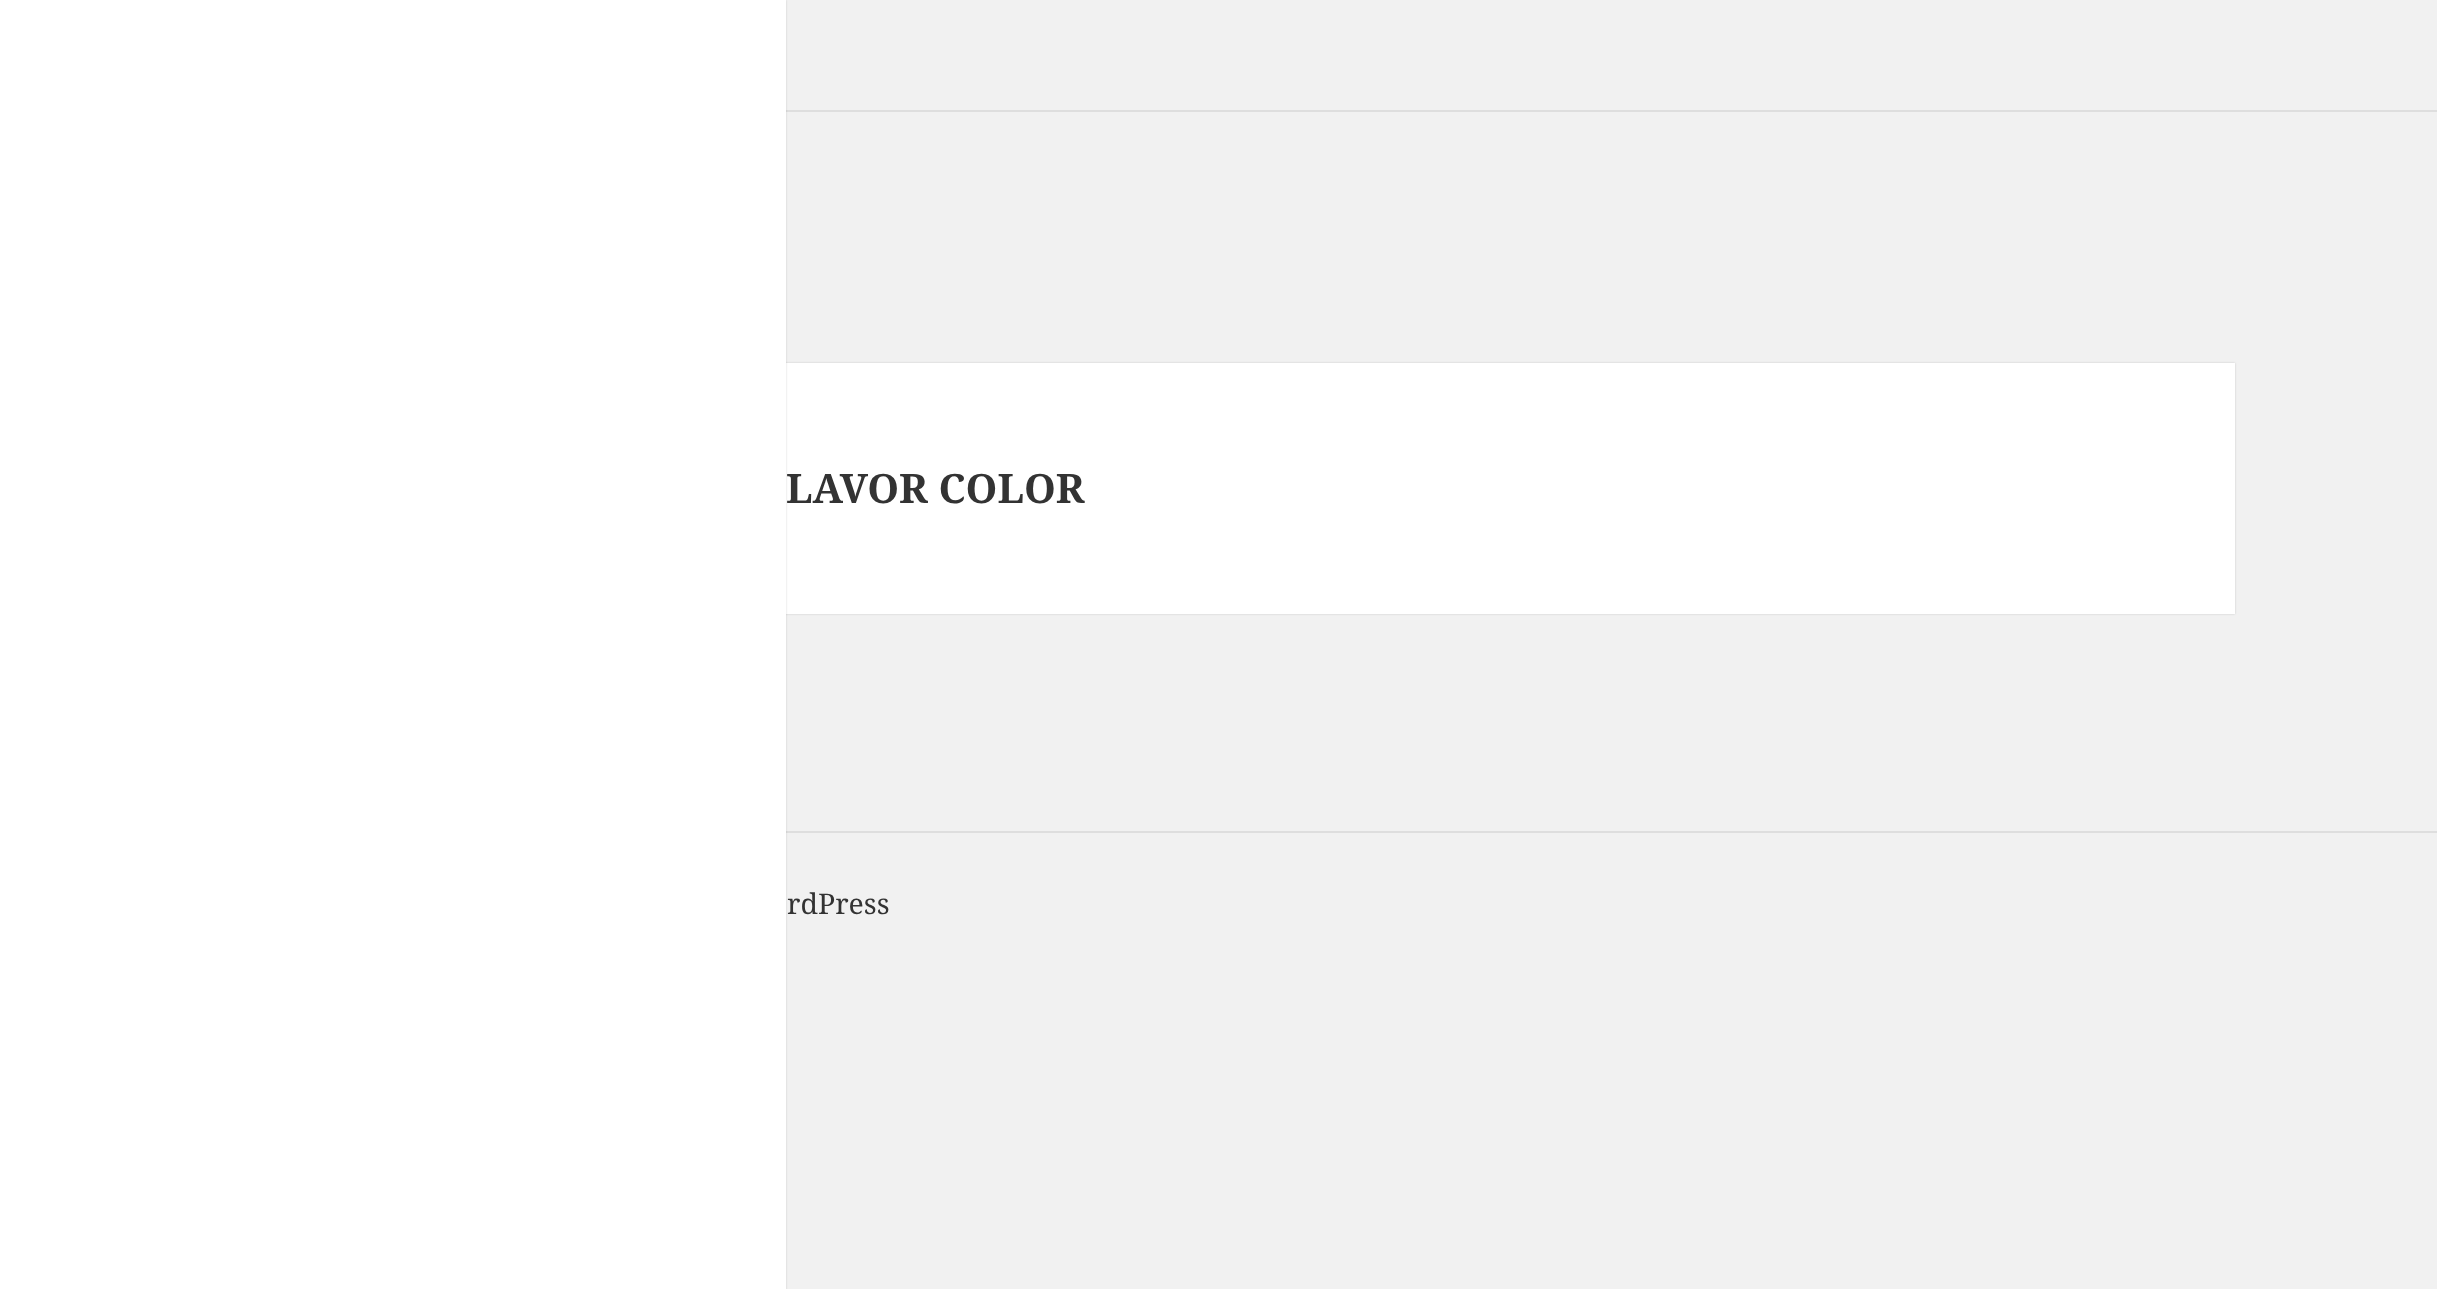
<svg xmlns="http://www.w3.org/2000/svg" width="2437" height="1289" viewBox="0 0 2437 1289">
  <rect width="100%" height="100%" fill="#f1f1f1"/>
  <path d="M786 110h1651v2H786z" fill="#dedede"/>
  <path d="M203 363h2032v251H203z" fill="#00000026" filter="blur(1px)"/>
  <path d="M786 363h1449v251H786z" fill="#fff"/>
  <path d="M786 831h1651v2H786z" fill="#dedede"/>
  <path d="M0 0h786v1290H0z" fill="#00000026" filter="blur(1px)"/>
  <path d="M0 0h786v1289H0z" fill="#fff"/>
  <text x="786" y="503" font-family="Noto Serif" font-size="40.5" font-weight="bold" fill="#333">LAVOR COLOR</text>
  <text x="787" y="914" font-family="Noto Serif" font-size="28.5" fill="#333">rdPress</text>
</svg>
